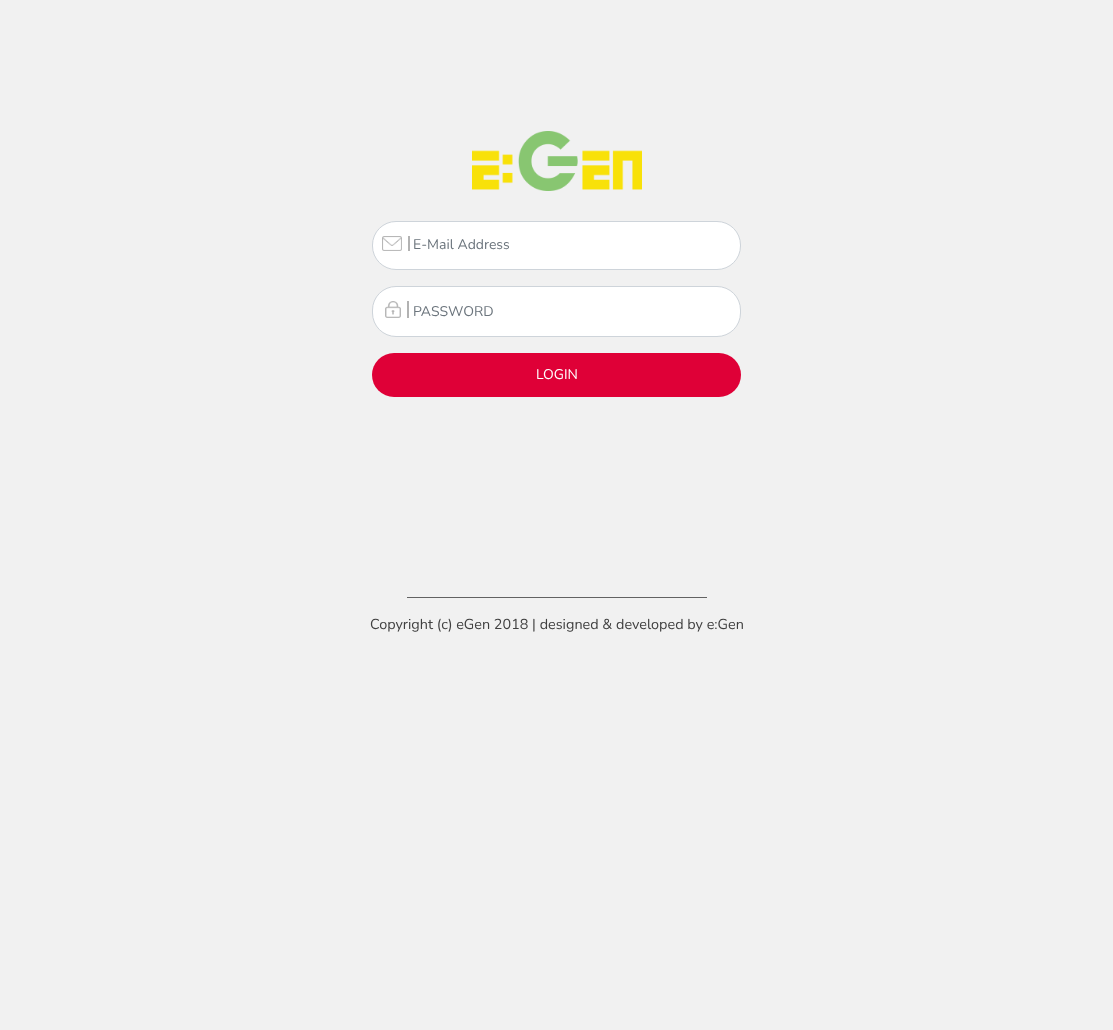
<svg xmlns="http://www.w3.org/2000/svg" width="1113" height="1030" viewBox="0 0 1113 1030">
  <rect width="100%" height="100%" fill="#f1f1f1"/>
  <image x="472" y="131" width="170" height="60" href="img/1.png"/>
  <rect x="372.5" y="221.5" width="368" height="48" rx="23.5" fill="#fff" stroke="#ced4da"/>
  <path d="M408 236h2v15H408z" fill="#b2b2b2"/>
  <image x="382" y="236" width="20" height="15" href="img/2.png"/>
  <rect x="372.5" y="286.5" width="368" height="50" rx="23.5" fill="#fff" stroke="#ced4da"/>
  <path d="M407 301h2v17H407z" fill="#b2b2b2"/>
  <image x="385" y="301" width="16" height="17" href="img/3.png"/>
  <rect x="372" y="353" width="369" height="44" rx="22" fill="#df0037"/>
  <path d="M407 597h300v1H407z" fill="#626262"/>
  <g font-family="Nunito" font-size="14" font-weight="200" fill="#6c757d">
    <text x="413" y="249">E-Mail Address</text>
    <text x="413" y="316">PASSWORD</text>
  </g>
  <text x="536" y="379" font-family="Nunito" font-size="14" font-weight="200" fill="#fff">LOGIN</text>
  <text x="370" y="629" font-family="Nunito" font-size="14.4" font-weight="200" fill="#404040">Copyright (c) eGen 2018 | designed &amp; developed by e:Gen</text>
</svg>
